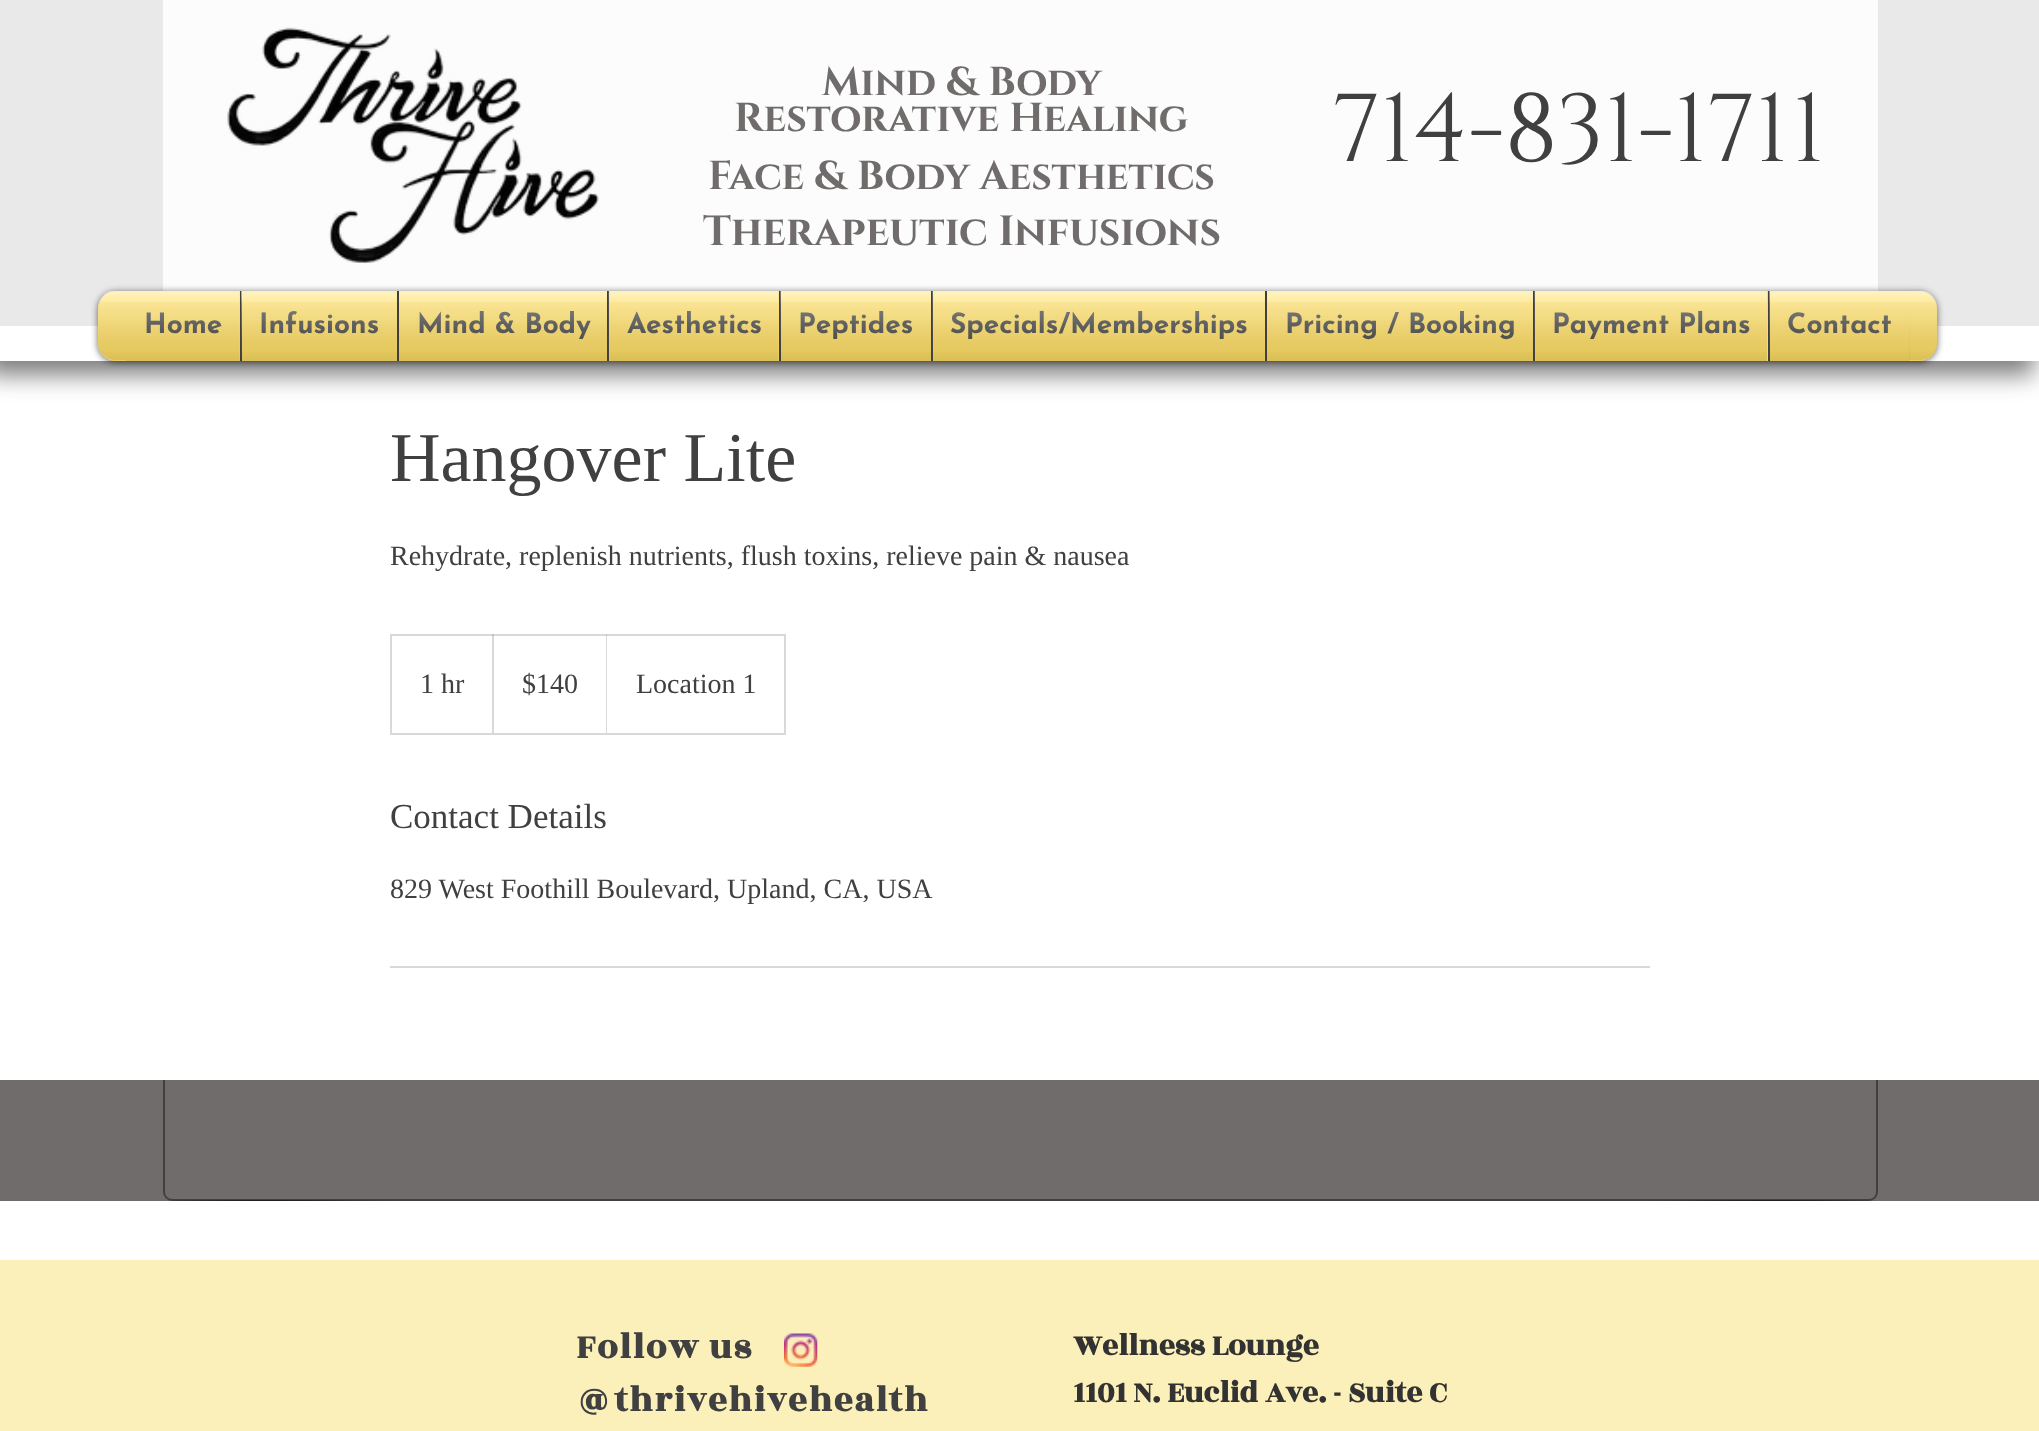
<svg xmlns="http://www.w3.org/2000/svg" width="2039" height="1431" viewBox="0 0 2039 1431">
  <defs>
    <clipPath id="clip1"><path d="M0 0H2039V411H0ZM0 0H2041V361H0Z" clip-rule="evenodd"/></clipPath>
  </defs>
  <rect width="100%" height="100%" fill="#706c6c"/>
  <rect x="164" y="327" width="1713" height="873" rx="8" fill="none" stroke="#404041" stroke-width="2"/>
  <path d="M0 326h2039v754H0z" fill="#fff"/>
  <g clip-path="url(#clip1)">
    <path d="M-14 7h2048v368H-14z" fill="#00000082" filter="blur(11.5px)"/>
  </g>
  <path d="M0 0h2039v361H0z" fill="#ffffffd9"/>
  <path d="M163 0h1715v291H163z" fill="#ffffffd9"/>
  <image x="227" y="27" width="372" height="237" href="img/1.png"/>
  <rect x="98" y="292" width="1839" height="70" rx="18" fill="#00000099" filter="blur(3.5px)"/>
  <rect x="98" y="291" width="1839" height="70" rx="18" fill="#ffde5f"/>
  <image x="98" y="291" width="1839" height="70" href="img/2.png"/>
  <image x="98" y="302" width="1839" height="59" href="img/3.png"/>
  <path d="M126 291h114v70H126z" fill="#ffde5f"/>
  <path d="M242 291h155v70H242z" fill="#ffde5f"/>
  <path d="M240 291h2v70H240z" fill="#404041"/>
  <path d="M399 291h208v70H399z" fill="#ffde5f"/>
  <path d="M397 291h2v70H397z" fill="#404041"/>
  <path d="M609 291h170v70H609z" fill="#ffde5f"/>
  <path d="M607 291h2v70H607z" fill="#404041"/>
  <path d="M781 291h150v70H781z" fill="#ffde5f"/>
  <path d="M779 291h2v70H779z" fill="#404041"/>
  <path d="M933 291h332v70H933z" fill="#ffde5f"/>
  <path d="M931 291h2v70H931z" fill="#404041"/>
  <path d="M1267 291h266v70H1267z" fill="#ffde5f"/>
  <path d="M1265 291h2v70H1265z" fill="#404041"/>
  <path d="M1535 291h233v70H1535z" fill="#ffde5f"/>
  <path d="M1533 291h2v70H1533z" fill="#404041"/>
  <path d="M1770 291h139v70H1770z" fill="#ffde5f"/>
  <path d="M1768 291h2v70H1768z" fill="#404041"/>
  <image x="164" y="1200" width="230" height="1" href="img/22.png"/>
  <image x="1647" y="1200" width="230" height="1" href="img/23.png"/>
  <path d="M391 635h394v99H391z" fill="none" stroke="#d9d9d9" stroke-width="2"/>
  <path d="M492 733V634L494 635V733Z" fill="#40404133"/>
  <path d="M606 733V634L607 635V733Z" fill="#40404133"/>
  <path d="M390 966h1260v2H390z" fill="#d9d9d9"/>
  <path d="M0 1201h2039v59H0z" fill="#fff"/>
  <path d="M0 1260h2039v171H0z" fill="#fbefba"/>
  <image x="784" y="1333" width="34" height="34" href="img/24.png"/>
  <g font-family="Cinzel" font-size="40.25" font-weight="bold" fill="#706c6c">
    <text x="822" y="95">Mind &amp; Body</text>
    <text x="734" y="131">Restorative Healing</text>
    <text x="708" y="189">Face &amp; Body Aesthetics</text>
  </g>
  <text x="703" y="245" font-family="Cinzel" font-size="42" font-weight="bold" fill="#706c6c">Therapeutic Infusions</text>
  <text x="1332" y="161" font-family="Cinzel" font-size="96.25" fill="#404041">714-831-1711</text>
  <text x="144" y="333" font-family="Josefin Sans" font-size="28" font-weight="100" fill="#404041">Home</text>
  <image x="126" y="291" width="114" height="70" href="img/4.png"/>
  <image x="126" y="302" width="114" height="59" href="img/5.png"/>
  <text x="259" y="333" font-family="Josefin Sans" font-size="28" font-weight="100" fill="#404041">Infusions</text>
  <image x="241" y="291" width="156" height="70" href="img/6.png"/>
  <image x="241" y="302" width="156" height="59" href="img/7.png"/>
  <text x="417" y="333" font-family="Josefin Sans" font-size="28" font-weight="100" fill="#404041">Mind &amp; Body</text>
  <image x="399" y="291" width="208" height="70" href="img/8.png"/>
  <image x="399" y="302" width="208" height="59" href="img/9.png"/>
  <text x="627" y="333" font-family="Josefin Sans" font-size="28" font-weight="100" fill="#404041">Aesthetics</text>
  <image x="608" y="291" width="171" height="70" href="img/10.png"/>
  <image x="609" y="302" width="170" height="59" href="img/11.png"/>
  <text x="798" y="333" font-family="Josefin Sans" font-size="28" font-weight="100" fill="#404041">Peptides</text>
  <image x="780" y="291" width="151" height="70" href="img/12.png"/>
  <image x="780" y="302" width="151" height="59" href="img/13.png"/>
  <text x="950" y="333" font-family="Josefin Sans" font-size="28" font-weight="100" fill="#404041">Specials/Memberships</text>
  <image x="932" y="291" width="333" height="70" href="img/14.png"/>
  <image x="933" y="302" width="332" height="59" href="img/15.png"/>
  <text x="1285" y="333" font-family="Josefin Sans" font-size="28" font-weight="100" fill="#404041">Pricing / Booking</text>
  <image x="1267" y="291" width="266" height="70" href="img/16.png"/>
  <image x="1267" y="302" width="266" height="59" href="img/17.png"/>
  <text x="1552" y="333" font-family="Josefin Sans" font-size="28" font-weight="100" fill="#404041">Payment Plans</text>
  <image x="1534" y="291" width="233" height="70" href="img/18.png"/>
  <image x="1535" y="302" width="232" height="59" href="img/19.png"/>
  <text x="1787" y="333" font-family="Josefin Sans" font-size="28" font-weight="100" fill="#404041">Contact</text>
  <image x="1769" y="291" width="141" height="70" href="img/20.png"/>
  <image x="1769" y="302" width="141" height="59" href="img/21.png"/>
  <text x="390" y="481" font-family="Liberation Serif" font-size="70" fill="#404041">Hangover Lite</text>
  <g font-family="Liberation Serif" font-size="28" fill="#404041">
    <text x="390" y="565">Rehydrate, replenish nutrients, flush toxins, relieve pain &amp; nausea</text>
    <text x="420" y="693">1 hr</text>
    <text x="522" y="693">$140</text>
    <text x="636" y="693">Location 1</text>
  </g>
  <text x="390" y="828" font-family="Liberation Serif" font-size="35" fill="#404041">Contact Details</text>
  <text x="390" y="898" font-family="Liberation Serif" font-size="28" fill="#404041">829 West Foothill Boulevard, Upland, CA, USA</text>
  <g font-family="Rozha One" font-size="36.75" font-weight="bold" letter-spacing="1.5" fill="#404041">
    <text x="576" y="1358">Follow us</text>
    <text x="576" y="1411">@thrivehivehealth</text>
  </g>
  <g font-family="Rozha One" font-size="31.5" font-weight="bold" fill="#323232">
    <text x="1073" y="1355">Wellness Lounge</text>
    <text x="1073" y="1402">1101 N. Euclid Ave. - Suite C</text>
  </g>
</svg>
